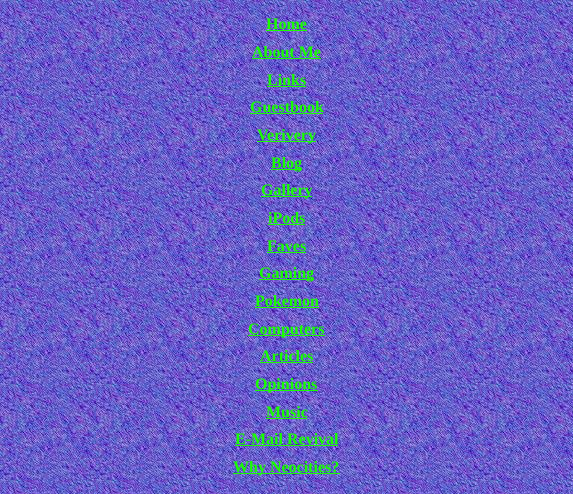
<svg xmlns="http://www.w3.org/2000/svg" width="573" height="494" viewBox="0 0 573 494">
  <rect width="100%" height="100%" fill="#fff"/>
  <image x="0" y="0" width="573" height="494" href="img/1.png"/>
  <path d="M266 30h41v1H266z" fill="#18ff00"/>
  <path d="M252 58h69v1H252z" fill="#18ff00"/>
  <path d="M267 86h39v1H267z" fill="#18ff00"/>
  <path d="M250 113h73v1H250z" fill="#18ff00"/>
  <path d="M257 141h59v1H257z" fill="#18ff00"/>
  <path d="M271 169h31v1H271z" fill="#18ff00"/>
  <path d="M261 196h51v1H261z" fill="#18ff00"/>
  <path d="M268 224h37v1H268z" fill="#18ff00"/>
  <path d="M267 252h39v1H267z" fill="#18ff00"/>
  <path d="M259 279h55v1H259z" fill="#18ff00"/>
  <path d="M255 307h64v1H255z" fill="#18ff00"/>
  <path d="M248 335h77v1H248z" fill="#18ff00"/>
  <path d="M260 362h53v1H260z" fill="#18ff00"/>
  <path d="M255 390h63v1H255z" fill="#18ff00"/>
  <path d="M266 418h41v1H266z" fill="#18ff00"/>
  <path d="M235 445h103v1H235z" fill="#18ff00"/>
  <path d="M233 473h107v1H233z" fill="#18ff00"/>
  <g font-family="Liberation Serif" font-size="16" font-weight="bold" fill="#18ff00">
    <text x="266" y="29">Home</text>
    <text x="252" y="57">About Me</text>
    <text x="267" y="85">Links</text>
    <text x="250" y="112">Guestbook</text>
    <text x="257" y="140">Verivery</text>
    <text x="271" y="168">Blog</text>
    <text x="261" y="195">Gallery</text>
    <text x="268" y="223">iPods</text>
    <text x="267" y="251">Faves</text>
    <text x="259" y="278">Gaming</text>
    <text x="255" y="306">Pokemon</text>
    <text x="248" y="334">Computers</text>
    <text x="260" y="361">Articles</text>
    <text x="255" y="389">Opinions</text>
    <text x="266" y="417">Music</text>
    <text x="235" y="444">E-Mail Revival</text>
    <text x="233" y="472">Why Neocities?</text>
  </g>
</svg>
